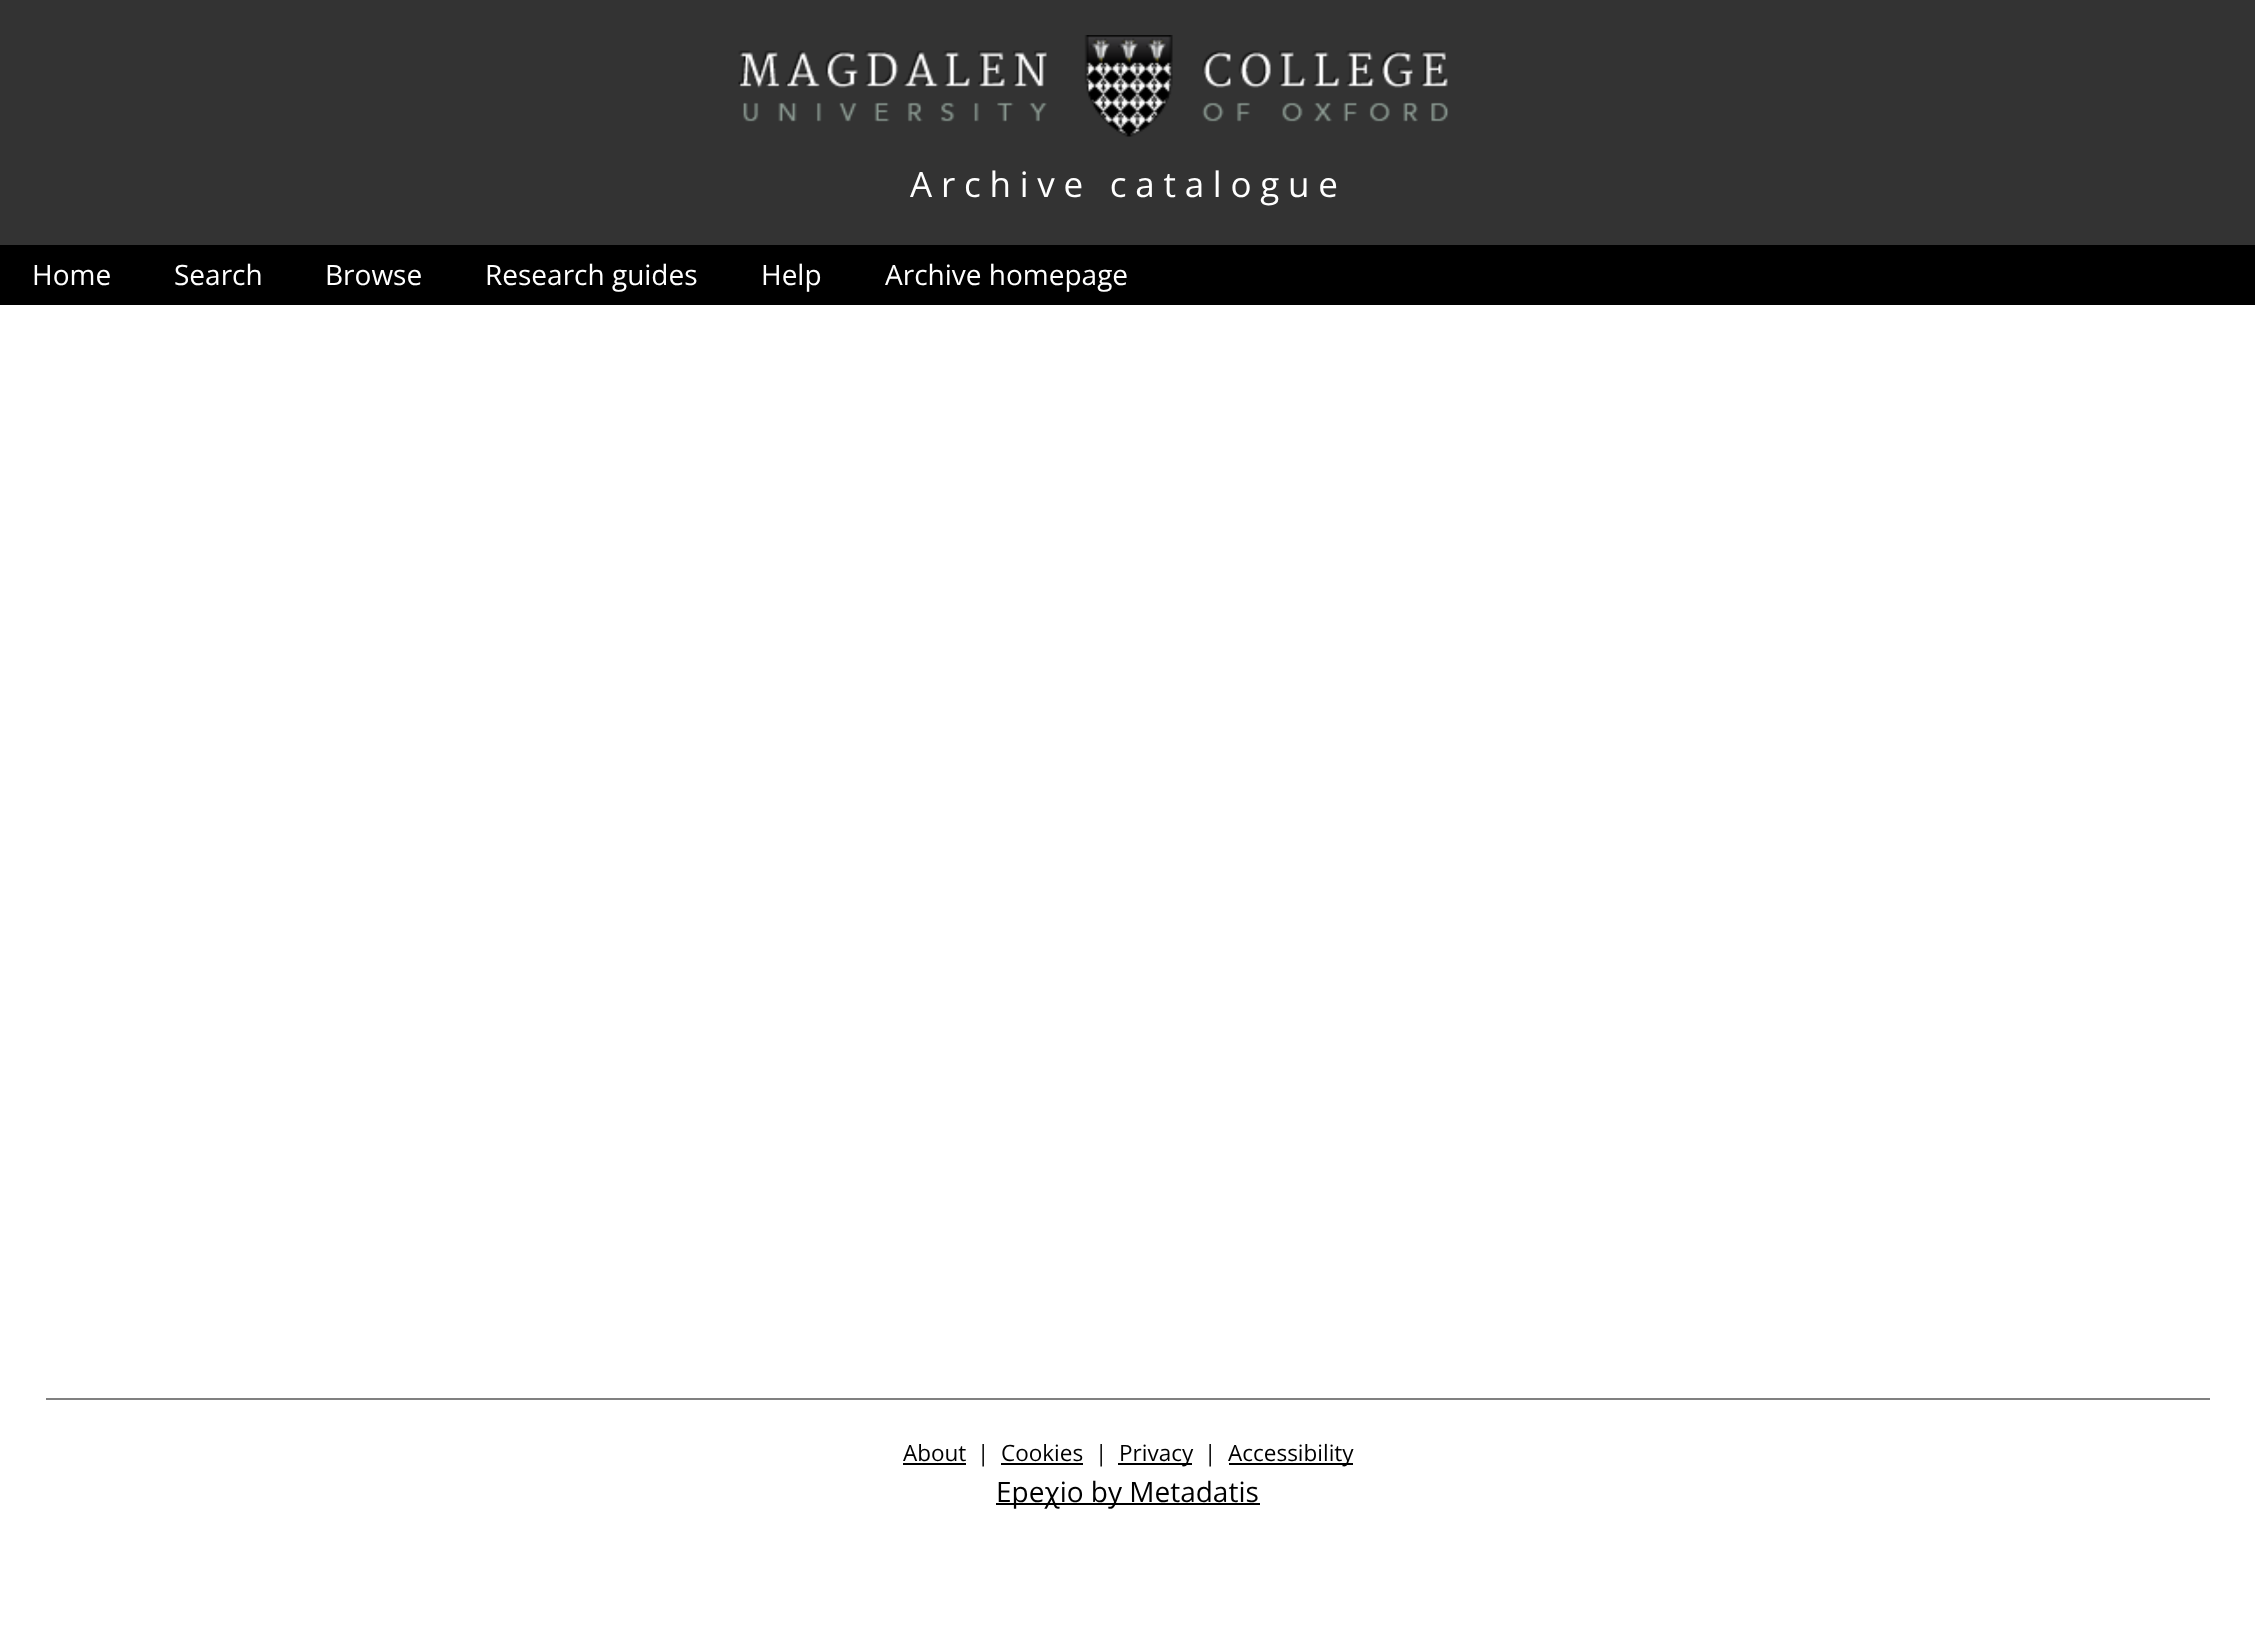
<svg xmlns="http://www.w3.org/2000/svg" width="2255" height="1646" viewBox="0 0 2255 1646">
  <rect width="100%" height="100%" fill="#fff"/>
  <path d="M0 0h2255v245H0z" fill="#333"/>
  <image x="738" y="35" width="711" height="102" href="img/1.png"/>
  <path d="M0 245h2255v60H0z" fill="#000"/>
  <path d="M46 1398h2164v2H46z" fill="#808080"/>
  <path d="M903 1463h63v2H903z" fill="#000"/>
  <path d="M1001 1463h82v2H1001z" fill="#000"/>
  <path d="M1118 1463h74v2H1118z" fill="#000"/>
  <path d="M1229 1463h124v2H1229z" fill="#000"/>
  <path d="M996 1503h264v2H996z" fill="#000"/>
  <text x="910" y="197" font-family="Open Sans" font-size="35" letter-spacing="8.75" fill="#fff">Archive catalogue</text>
  <g font-family="Open Sans" font-size="28" fill="#fff">
    <text x="32" y="285">Home</text>
    <text x="174" y="285">Search</text>
    <text x="325" y="285">Browse</text>
    <text x="485" y="285">Research guides</text>
    <text x="761" y="285">Help</text>
    <text x="885" y="285">Archive homepage</text>
  </g>
  <g font-family="Open Sans" font-size="22.5" fill="#000">
    <text x="903" y="1461">About</text>
    <text x="977" y="1461">|</text>
    <text x="1001" y="1461">Cookies</text>
    <text x="1095" y="1461">|</text>
    <text x="1119" y="1461">Privacy</text>
    <text x="1204" y="1461">|</text>
    <text x="1228" y="1461">Accessibility</text>
  </g>
  <text x="996" y="1502" font-family="Open Sans" font-size="28" fill="#000">Epeχio by Metadatis</text>
</svg>
